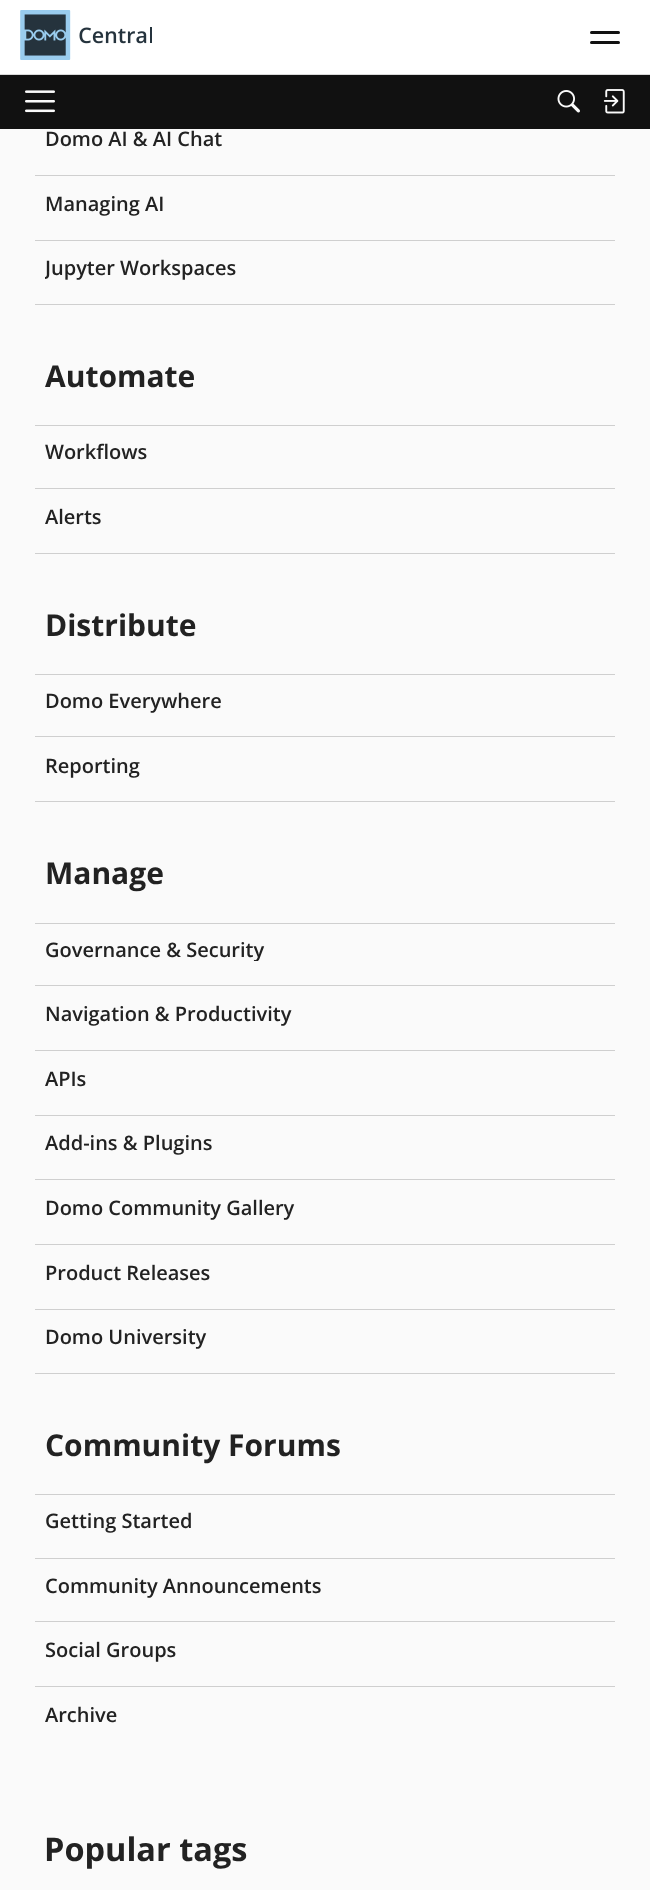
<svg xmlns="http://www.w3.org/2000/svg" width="650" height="1890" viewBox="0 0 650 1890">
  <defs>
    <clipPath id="clip1"><path d="M45 255h560v25H45z"/></clipPath>
    <clipPath id="clip2"><path d="M45 936h560v25H45z"/></clipPath>
  </defs>
  <rect width="100%" height="100%" fill="#fafafa"/>
  <path d="M0 0h650v74H0z" fill="#fff"/>
  <path d="M0 74h650v1H0z" fill="#d9d9d9"/>
  <image x="20" y="10" width="132" height="50" href="img/1.png"/>
  <rect x="590" y="31" width="30" height="3" rx="1.5" fill="#111"/>
  <rect x="590" y="41" width="30" height="3" rx="1.5" fill="#111"/>
  <path d="M0 75h650v54H0z" fill="#111"/>
  <image x="25" y="90" width="30" height="23" href="img/2.png"/>
  <image x="557" y="90" width="23" height="23" href="img/3.png"/>
  <image x="603" y="89" width="22" height="25" href="img/4.png"/>
  <path d="M35 175h580v1H35z" fill="#cfcfcf"/>
  <path d="M35 240h580v1H35z" fill="#cfcfcf"/>
  <path d="M35 304h580v1H35z" fill="#cfcfcf"/>
  <path d="M35 425h580v1H35z" fill="#cfcfcf"/>
  <path d="M35 488h580v1H35z" fill="#cfcfcf"/>
  <path d="M35 553h580v1H35z" fill="#cfcfcf"/>
  <path d="M35 674h580v1H35z" fill="#cfcfcf"/>
  <path d="M35 736h580v1H35z" fill="#cfcfcf"/>
  <path d="M35 801h580v1H35z" fill="#cfcfcf"/>
  <path d="M35 923h580v1H35z" fill="#cfcfcf"/>
  <path d="M35 985h580v1H35z" fill="#cfcfcf"/>
  <path d="M35 1050h580v1H35z" fill="#cfcfcf"/>
  <path d="M35 1115h580v1H35z" fill="#cfcfcf"/>
  <path d="M35 1179h580v1H35z" fill="#cfcfcf"/>
  <path d="M35 1244h580v1H35z" fill="#cfcfcf"/>
  <path d="M35 1309h580v1H35z" fill="#cfcfcf"/>
  <path d="M35 1373h580v1H35z" fill="#cfcfcf"/>
  <path d="M35 1494h580v1H35z" fill="#cfcfcf"/>
  <path d="M35 1558h580v1H35z" fill="#cfcfcf"/>
  <path d="M35 1621h580v1H35z" fill="#cfcfcf"/>
  <path d="M35 1686h580v1H35z" fill="#cfcfcf"/>
  <g font-family="Open Sans" font-size="20" font-weight="600" fill="#222">
    <text x="45" y="146">Domo AI &amp; AI Chat</text>
    <text x="45" y="211">Managing AI</text>
  </g>
  <g clip-path="url(#clip1)">
    <text x="45" y="275" font-family="Open Sans" font-size="20" font-weight="600" fill="#222">Jupyter Workspaces</text>
  </g>
  <text x="45" y="387" font-family="Open Sans" font-size="30" font-weight="bold" fill="#222">Automate</text>
  <g font-family="Open Sans" font-size="20" font-weight="600" fill="#222">
    <text x="45" y="459">Workflows</text>
    <text x="45" y="524">Alerts</text>
  </g>
  <text x="45" y="636" font-family="Open Sans" font-size="30" font-weight="bold" fill="#222">Distribute</text>
  <g font-family="Open Sans" font-size="20" font-weight="600" fill="#222">
    <text x="45" y="708">Domo Everywhere</text>
    <text x="45" y="773">Reporting</text>
  </g>
  <text x="45" y="884" font-family="Open Sans" font-size="30" font-weight="bold" fill="#222">Manage</text>
  <g clip-path="url(#clip2)">
    <text x="45" y="957" font-family="Open Sans" font-size="20" font-weight="600" fill="#222">Governance &amp; Security</text>
  </g>
  <g font-family="Open Sans" font-size="20" font-weight="600" fill="#222">
    <text x="45" y="1021">Navigation &amp; Productivity</text>
    <text x="45" y="1086">APIs</text>
    <text x="45" y="1150">Add-ins &amp; Plugins</text>
    <text x="45" y="1215">Domo Community Gallery</text>
    <text x="45" y="1280">Product Releases</text>
    <text x="45" y="1344">Domo University</text>
  </g>
  <text x="45" y="1456" font-family="Open Sans" font-size="30" font-weight="bold" fill="#222">Community Forums</text>
  <g font-family="Open Sans" font-size="20" font-weight="600" fill="#222">
    <text x="45" y="1528">Getting Started</text>
    <text x="45" y="1593">Community Announcements</text>
    <text x="45" y="1657">Social Groups</text>
    <text x="45" y="1722">Archive</text>
  </g>
  <text x="44" y="1861" font-family="Open Sans" font-size="32.5" font-weight="bold" fill="#222">Popular tags</text>
</svg>
